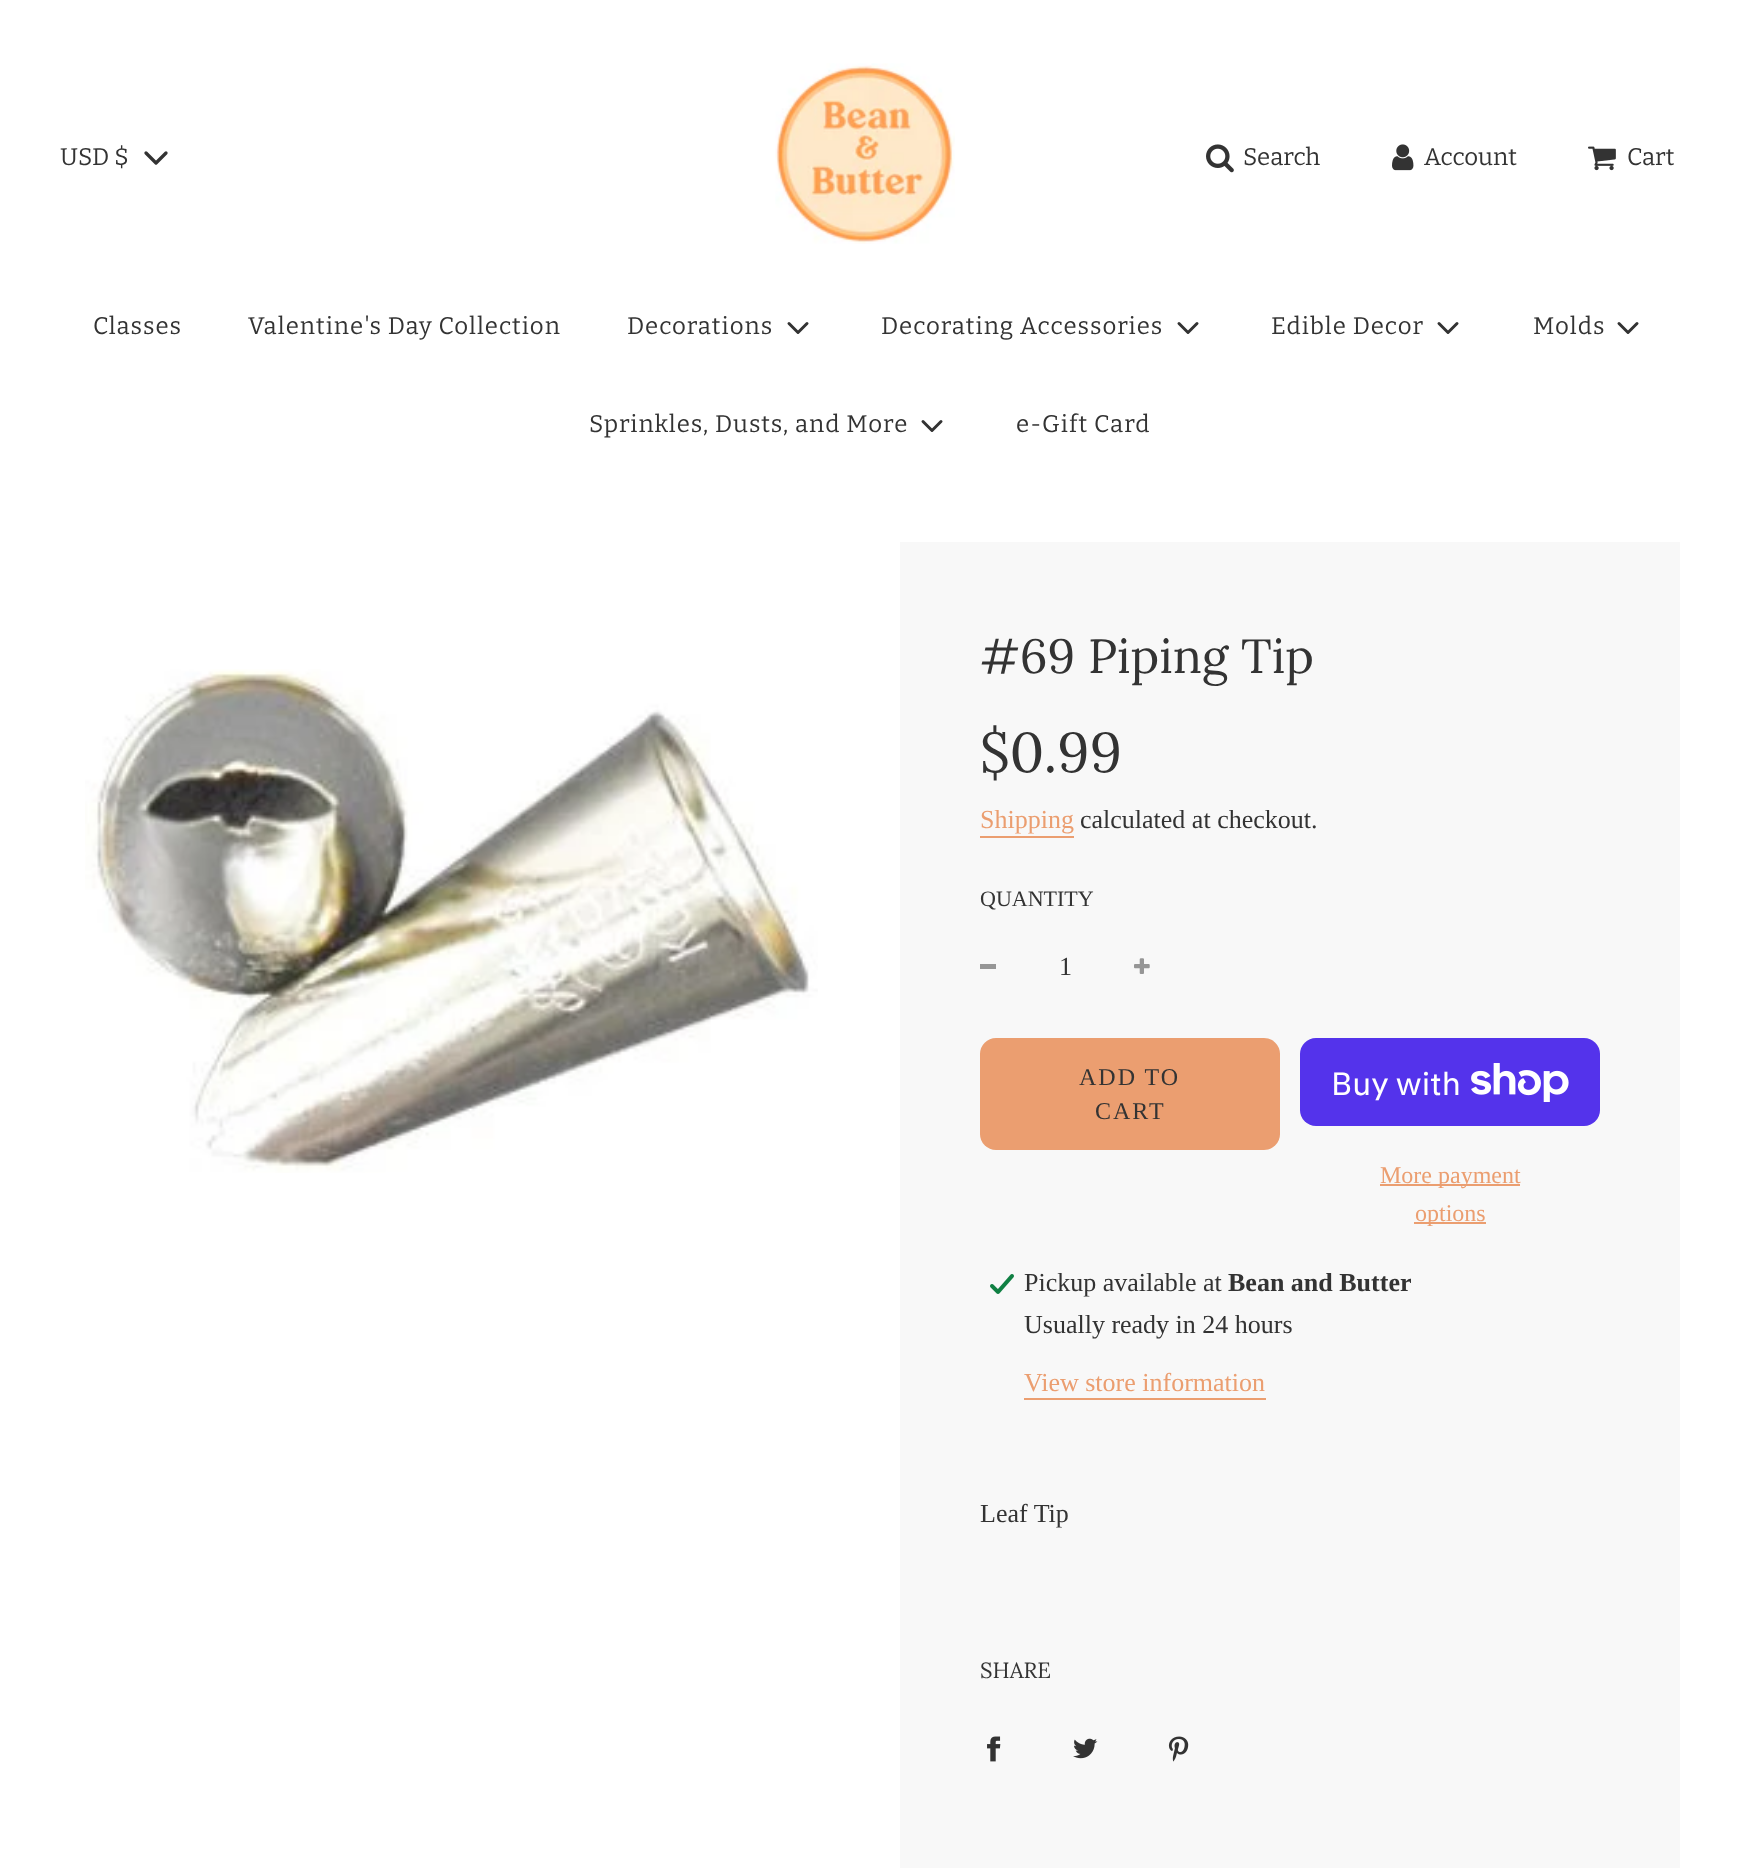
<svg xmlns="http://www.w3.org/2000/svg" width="1739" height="1868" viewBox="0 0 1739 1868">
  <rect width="100%" height="100%" fill="#fff"/>
  <path d="M146 153L156 163L166 153" fill="none" stroke="#333" stroke-width="3.3" stroke-linecap="round" stroke-linejoin="round"/>
  <image x="775" y="63" width="180" height="181" href="img/1.png"/>
  <image x="1206" y="144" width="28" height="29" href="img/2.png"/>
  <image x="1392" y="144" width="22" height="27" href="img/3.png"/>
  <image x="1588" y="146" width="28" height="25" href="img/4.png"/>
  <path d="M789 323.5L798 332.5L807 323.5" fill="none" stroke="#333" stroke-width="3" stroke-linecap="round" stroke-linejoin="round"/>
  <path d="M1179 323.5L1188 332.5L1197 323.5" fill="none" stroke="#333" stroke-width="3" stroke-linecap="round" stroke-linejoin="round"/>
  <path d="M1439 323.5L1448 332.5L1457 323.5" fill="none" stroke="#333" stroke-width="3" stroke-linecap="round" stroke-linejoin="round"/>
  <path d="M1619 323.5L1628 332.5L1637 323.5" fill="none" stroke="#333" stroke-width="3" stroke-linecap="round" stroke-linejoin="round"/>
  <path d="M923 421.5L932 430.5L941 421.5" fill="none" stroke="#333" stroke-width="3" stroke-linecap="round" stroke-linejoin="round"/>
  <image x="85" y="669" width="733" height="504" href="img/5.png"/>
  <path d="M900 542h780v1326H900z" fill="#f8f8f8"/>
  <path d="M980 836h94v2H980z" fill="#eb9e70"/>
  <path d="M980 964h16v5H980z" fill="#969696"/>
  <image x="1134" y="958" width="16" height="16" href="img/6.png"/>
  <rect x="980" y="1038" width="300" height="112" rx="16" fill="#eb9e70"/>
  <rect x="1300" y="1038" width="300" height="88" rx="16" fill="#5433eb"/>
  <image x="1471" y="1063" width="98" height="39" href="img/7.png"/>
  <path d="M1380 1184h140v2H1380z" fill="#eb9e70"/>
  <path d="M1414 1222h72v2H1414z" fill="#eb9e70"/>
  <image x="990" y="1274" width="24" height="20" href="img/8.png"/>
  <path d="M1024 1398h242v2H1024z" fill="#eb9e70"/>
  <image x="987" y="1736" width="14" height="26" href="img/9.png"/>
  <image x="1073" y="1738" width="25" height="21" href="img/10.png"/>
  <image x="1168" y="1736" width="21" height="26" href="img/11.png"/>
  <g font-family="Bitter" font-size="24" fill="#333">
    <text x="60" y="165">USD $</text>
    <text x="1243" y="165">Search</text>
    <text x="1424" y="165">Account</text>
    <text x="1627" y="165">Cart</text>
  </g>
  <g font-family="Bitter" font-size="24" letter-spacing="1" fill="#333">
    <text x="93" y="334">Classes</text>
    <text x="248" y="334">Valentine's Day Collection</text>
    <text x="627" y="334">Decorations</text>
    <text x="881" y="334">Decorating Accessories</text>
    <text x="1271" y="334">Edible Decor</text>
    <text x="1533" y="334">Molds</text>
    <text x="589" y="432">Sprinkles, Dusts, and More</text>
    <text x="1016" y="432">e-Gift Card</text>
  </g>
  <text x="980" y="673" font-family="Lora" font-size="48" fill="#333">#69 Piping Tip</text>
  <text x="980" y="772" font-family="Lora" font-size="56" fill="#333">$0.99</text>
  <text x="980" y="828" font-family="Liberation Serif" font-size="26" fill="#eb9e70">Shipping</text>
  <text x="1080" y="828" font-family="Liberation Serif" font-size="26" fill="#333">calculated at checkout.</text>
  <text x="980" y="906" font-family="Liberation Serif" font-size="22" fill="#333">QUANTITY</text>
  <text x="1059" y="975" font-family="Liberation Serif" font-size="26" fill="#333">1</text>
  <g font-family="Liberation Serif" font-size="24" letter-spacing="2" fill="#333">
    <text x="1079" y="1085">ADD TO</text>
    <text x="1095" y="1119">CART</text>
  </g>
  <text x="1331" y="1095" font-family="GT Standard" font-size="32" fill="#fff">Buy with</text>
  <g font-family="Liberation Serif" font-size="24" fill="#eb9e70">
    <text x="1380" y="1183">More payment</text>
    <text x="1415" y="1221">options</text>
  </g>
  <text x="1024" y="1291" font-family="Liberation Serif" font-size="26" fill="#333">Pickup available at</text>
  <text x="1228" y="1291" font-family="Liberation Serif" font-size="26" font-weight="bold" fill="#333">Bean and Butter</text>
  <text x="1024" y="1333" font-family="Liberation Serif" font-size="26" fill="#333">Usually ready in 24 hours</text>
  <text x="1024" y="1391" font-family="Liberation Serif" font-size="26" fill="#eb9e70">View store information</text>
  <text x="980" y="1522" font-family="Liberation Serif" font-size="26" fill="#333">Leaf Tip</text>
  <text x="980" y="1678" font-family="Lora" font-size="22" fill="#333">SHARE</text>
</svg>
